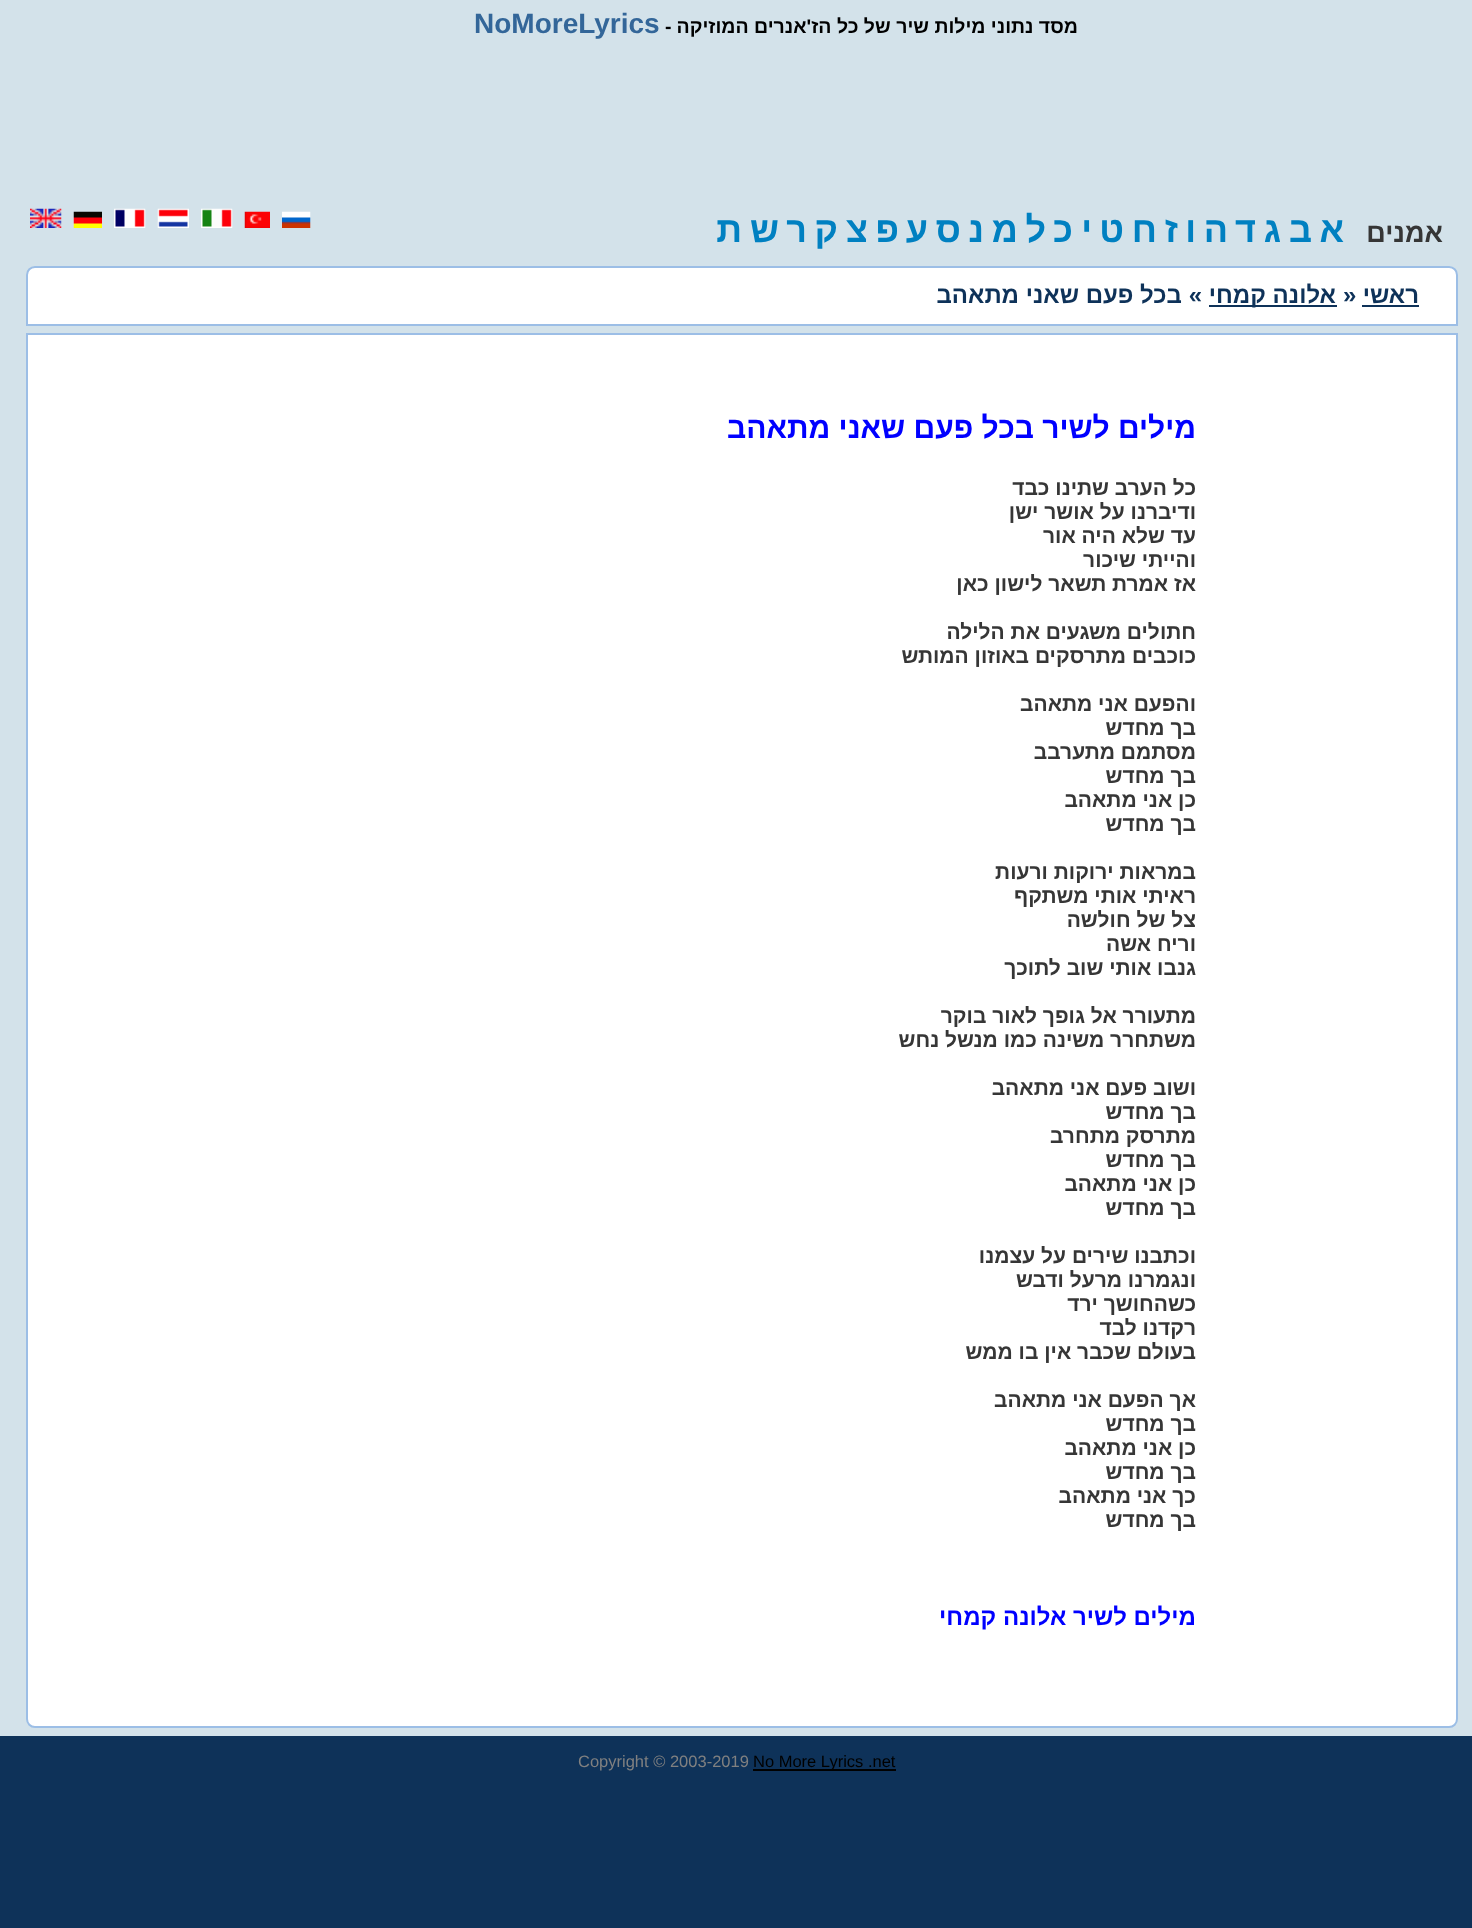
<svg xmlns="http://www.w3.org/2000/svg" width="1472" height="1928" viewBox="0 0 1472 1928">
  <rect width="100%" height="100%" fill="#0e3259"/>
  <path d="M0 0h1472v1736H0z" fill="#d3e2ea"/>
  <image x="282" y="211" width="29" height="17" href="img/1.png"/>
  <image x="244" y="211" width="26" height="17" href="img/2.png"/>
  <image x="201" y="208" width="32" height="20" href="img/3.png"/>
  <image x="157" y="208" width="32" height="20" href="img/4.png"/>
  <image x="114" y="208" width="32" height="20" href="img/5.png"/>
  <image x="73" y="211" width="29" height="17" href="img/6.png"/>
  <image x="30" y="208" width="32" height="20" href="img/7.png"/>
  <path d="M35 267H1449C1453.5 267 1457 270.5 1457 275V325H27V275C27 270.5 30.5 267 35 267Z" fill="#fff" stroke="#9cbee6" stroke-width="2"/>
  <path d="M1362 305h57v2H1362z" fill="#0e3259"/>
  <path d="M1209 305h128v2H1209z" fill="#0e3259"/>
  <path d="M27 334H1457V1719C1457 1723.5 1453.5 1727 1449 1727H35C30.5 1727 27 1723.5 27 1719Z" fill="#fff" stroke="#9cbee6" stroke-width="2"/>
  <path d="M753 1769h143v2H753z" fill="#000"/>
  <text x="1078" y="33" font-family="Liberation Sans" font-size="19.5" font-weight="bold" direction="rtl" fill="#000">מסד נתוני מילות שיר של כל הז'אנרים המוזיקה</text>
  <text x="665" y="33" font-family="Liberation Sans" font-size="19.5" font-weight="bold" fill="#000">-</text>
  <text x="474" y="33" font-family="Liberation Sans" font-size="28" font-weight="bold" fill="#369">NoMoreLyrics</text>
  <text x="1443" y="242" font-family="Liberation Sans" font-size="27" font-weight="bold" direction="rtl" fill="#363636">אמנים</text>
  <g font-family="Liberation Sans" font-size="36" font-weight="bold" direction="rtl" fill="#0080c1">
    <text x="1344" y="242">א</text>
    <text x="1312" y="242">ב</text>
    <text x="1281" y="242">ג</text>
    <text x="1256" y="242">ד</text>
    <text x="1228" y="242">ה</text>
    <text x="1196" y="242">ו</text>
    <text x="1178" y="242">ז</text>
    <text x="1157" y="242">ח</text>
    <text x="1124" y="242">ט</text>
    <text x="1092" y="242">י</text>
    <text x="1073" y="242">כ</text>
    <text x="1046" y="242">ל</text>
    <text x="1018" y="242">מ</text>
    <text x="984" y="242">נ</text>
    <text x="961" y="242">ס</text>
    <text x="928" y="242">ע</text>
    <text x="899" y="242">פ</text>
    <text x="868" y="242">צ</text>
    <text x="838" y="242">ק</text>
    <text x="807" y="242">ר</text>
    <text x="779" y="242">ש</text>
    <text x="742" y="242">ת</text>
  </g>
  <text x="1419" y="303" font-family="Liberation Sans" font-size="24" font-weight="bold" direction="rtl" fill="#0e3259">ראשי</text>
  <text x="1343" y="303" font-family="Liberation Sans" font-size="24" font-weight="bold" fill="#0e3259">»</text>
  <g font-family="Liberation Sans" font-size="24" font-weight="bold" direction="rtl" fill="#0e3259">
    <text x="1336" y="303">אלונה קמחי</text>
    <text x="1202" y="303">» בכל פעם שאני מתאהב</text>
  </g>
  <text x="1196" y="438" font-family="Liberation Sans" font-size="30" font-weight="bold" direction="rtl" fill="#00f">מילים לשיר בכל פעם שאני מתאהב</text>
  <g font-family="Liberation Sans" font-size="21" font-weight="bold" direction="rtl" fill="#363636">
    <text x="1196" y="495">כל הערב שתינו כבד</text>
    <text x="1196" y="519">ודיברנו על אושר ישן</text>
    <text x="1196" y="543">עד שלא היה אור</text>
    <text x="1196" y="567">והייתי שיכור</text>
    <text x="1196" y="591">אז אמרת תשאר לישון כאן</text>
    <text x="1196" y="639">חתולים משגעים את הלילה</text>
    <text x="1196" y="663">כוכבים מתרסקים באוזון המותש</text>
    <text x="1196" y="711">והפעם אני מתאהב</text>
    <text x="1196" y="735">בך מחדש</text>
    <text x="1196" y="759">מסתמם מתערבב</text>
    <text x="1196" y="783">בך מחדש</text>
    <text x="1196" y="807">כן אני מתאהב</text>
    <text x="1196" y="831">בך מחדש</text>
    <text x="1196" y="879">במראות ירוקות ורעות</text>
    <text x="1196" y="903">ראיתי אותי משתקף</text>
    <text x="1196" y="927">צל של חולשה</text>
    <text x="1196" y="951">וריח אשה</text>
    <text x="1196" y="975">גנבו אותי שוב לתוכך</text>
    <text x="1196" y="1023">מתעורר אל גופך לאור בוקר</text>
    <text x="1196" y="1047">משתחרר משינה כמו מנשל נחש</text>
    <text x="1196" y="1095">ושוב פעם אני מתאהב</text>
    <text x="1196" y="1119">בך מחדש</text>
    <text x="1196" y="1143">מתרסק מתחרב</text>
    <text x="1196" y="1167">בך מחדש</text>
    <text x="1196" y="1191">כן אני מתאהב</text>
    <text x="1196" y="1215">בך מחדש</text>
    <text x="1196" y="1263">וכתבנו שירים על עצמנו</text>
    <text x="1196" y="1287">ונגמרנו מרעל ודבש</text>
    <text x="1196" y="1311">כשהחושך ירד</text>
    <text x="1196" y="1335">רקדנו לבד</text>
    <text x="1196" y="1359">בעולם שכבר אין בו ממש</text>
    <text x="1196" y="1407">אך הפעם אני מתאהב</text>
    <text x="1196" y="1431">בך מחדש</text>
    <text x="1196" y="1455">כן אני מתאהב</text>
    <text x="1196" y="1479">בך מחדש</text>
    <text x="1196" y="1503">כך אני מתאהב</text>
    <text x="1196" y="1527">בך מחדש</text>
  </g>
  <text x="1196" y="1625" font-family="Liberation Sans" font-size="24" font-weight="bold" direction="rtl" fill="#00f">מילים לשיר אלונה קמחי</text>
  <text x="753" y="1767" font-family="Liberation Sans" font-size="16.5" fill="#000">No More Lyrics .net</text>
  <text x="578" y="1767" font-family="Liberation Sans" font-size="16.5" fill="#808080">Copyright © 2003-2019</text>
</svg>
